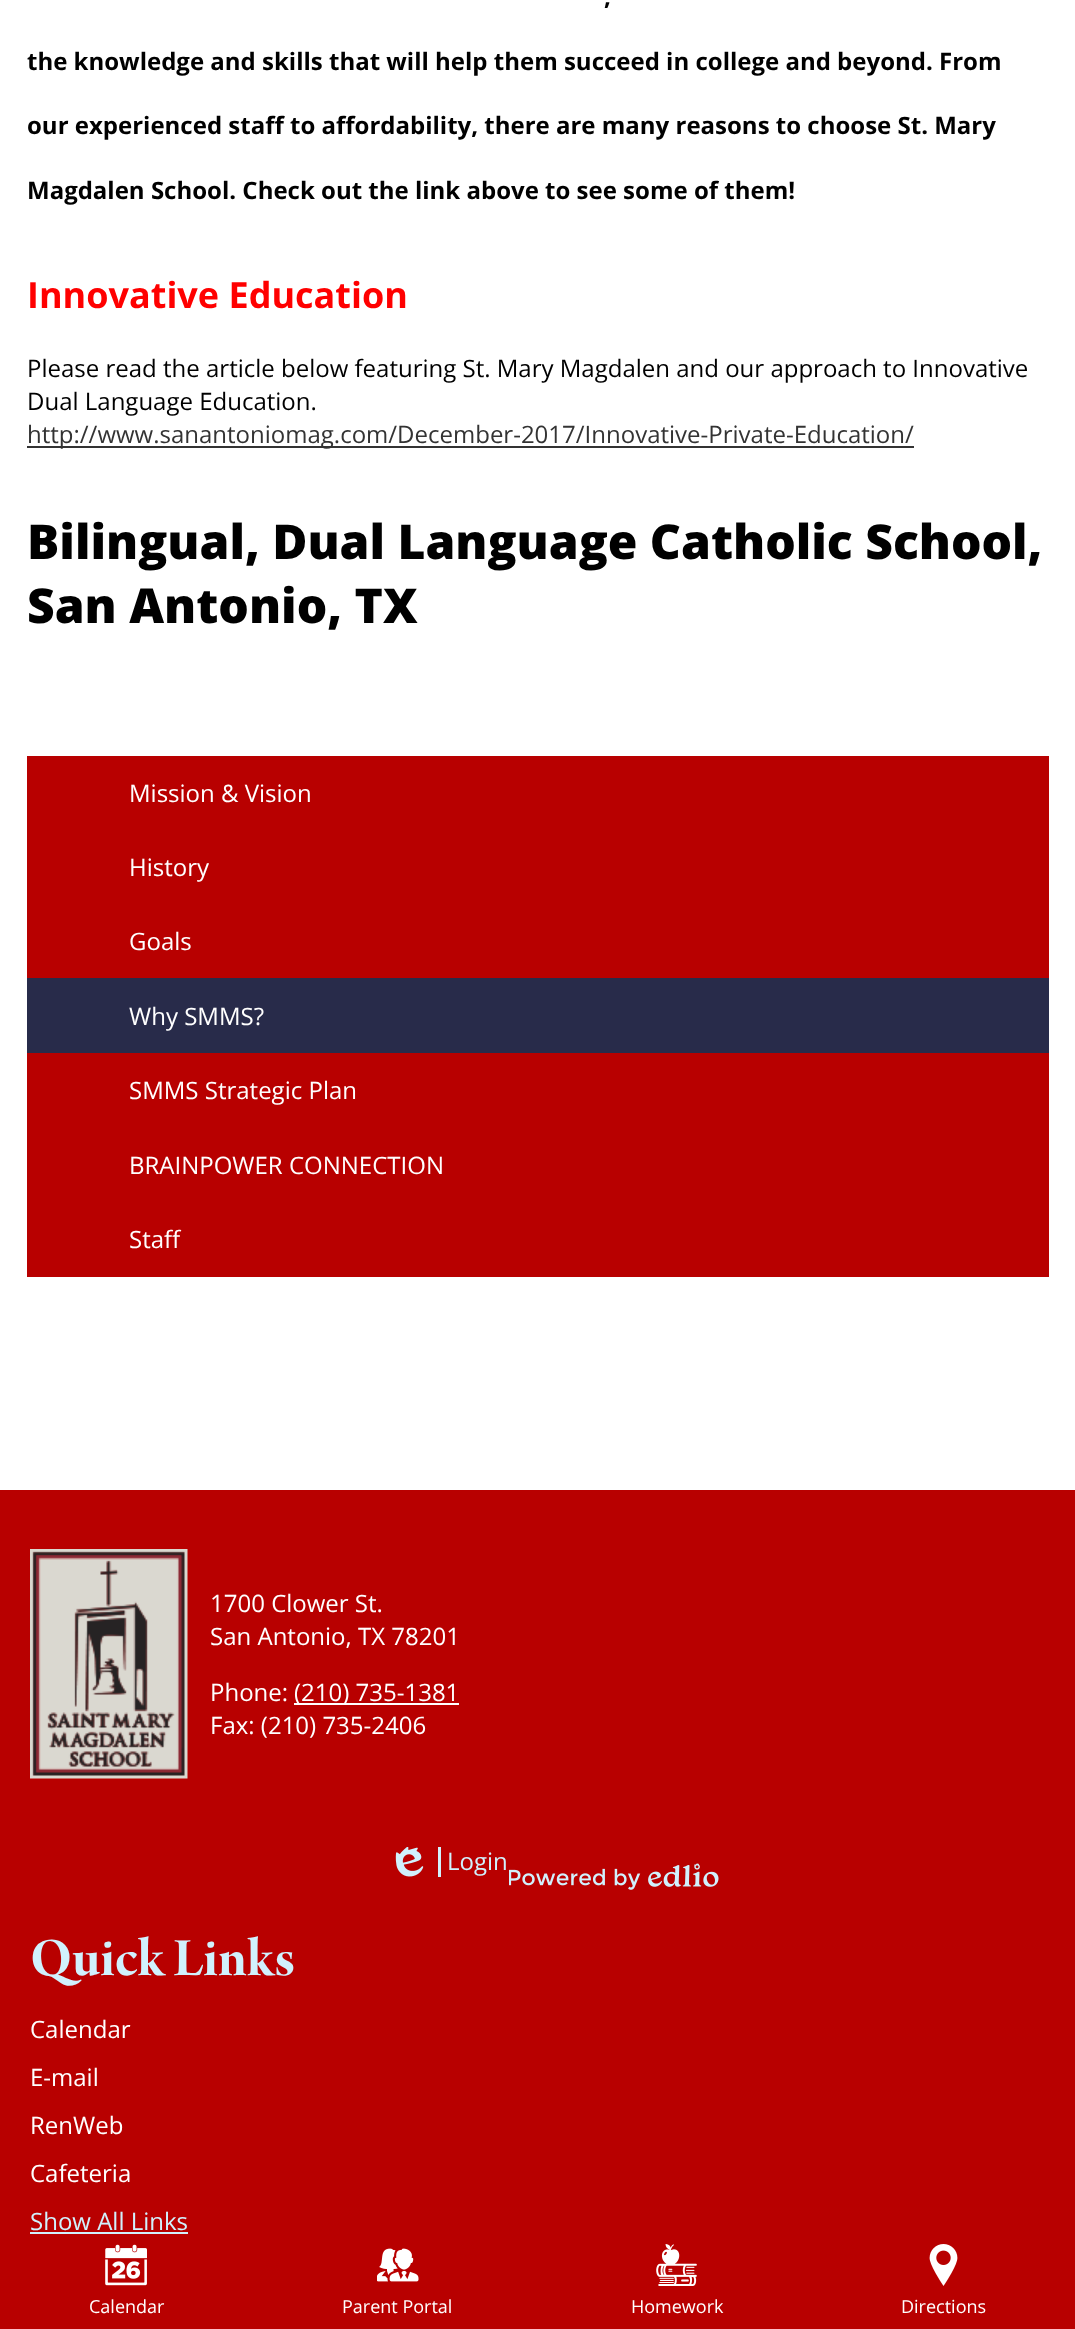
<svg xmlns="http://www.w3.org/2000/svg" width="1075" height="2329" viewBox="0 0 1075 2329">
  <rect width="100%" height="100%" fill="#fff"/>
  <path d="M27 446h887v2H27z" fill="#333"/>
  <path d="M27 756h1022v521H27z" fill="#b80000"/>
  <path d="M27 978h1022v75H27z" fill="#282b4a"/>
  <path d="M0 1490h1075v839H0z" fill="#b80000"/>
  <image x="30" y="1549" width="158" height="230" href="img/1.png"/>
  <path d="M294 1703h165v2H294z" fill="#fff"/>
  <path d="M438 1847h3v30H438z" fill="#d1f1fd"/>
  <image x="395" y="1847" width="29" height="30" href="img/2.png"/>
  <image x="509" y="1863" width="210" height="27" href="img/3.png"/>
  <path d="M30 2232h158v2H30z" fill="#d1f1fd"/>
  <image x="105" y="2244" width="42" height="42" href="img/4.png"/>
  <image x="377" y="2248" width="42" height="34" href="img/5.png"/>
  <image x="656" y="2244" width="41" height="42" href="img/6.png"/>
  <image x="929" y="2244" width="29" height="42" href="img/7.png"/>
  <g font-family="Open Sans" font-size="24" font-weight="bold" fill="#000">
    <text x="604" y="5">,</text>
    <text x="27" y="70">the knowledge and skills that will help them succeed in college and beyond. From</text>
    <text x="27" y="134">our experienced staff to affordability, there are many reasons to choose St. Mary</text>
    <text x="27" y="199">Magdalen School. Check out the link above to see some of them!</text>
  </g>
  <text x="27" y="308" font-family="Open Sans" font-size="36" font-weight="bold" fill="#f00">Innovative Education</text>
  <g font-family="Open Sans" font-size="24" fill="#000">
    <text x="27" y="377">Please read the article below featuring St. Mary Magdalen and our approach to Innovative</text>
    <text x="27" y="410">Dual Language Education.</text>
  </g>
  <text x="27" y="443" font-family="Open Sans" font-size="24" fill="#333">http://www.sanantoniomag.com/December-2017/Innovative-Private-Education/</text>
  <g font-family="Open Sans" font-size="48" font-weight="800" fill="#000">
    <text x="27" y="559">Bilingual, Dual Language Catholic School,</text>
    <text x="27" y="623">San Antonio, TX</text>
  </g>
  <g font-family="Open Sans" font-size="24" fill="#fff">
    <text x="129" y="802">Mission &amp; Vision</text>
    <text x="129" y="876">History</text>
    <text x="129" y="950">Goals</text>
    <text x="129" y="1025">Why SMMS?</text>
    <text x="129" y="1099">SMMS Strategic Plan</text>
    <text x="129" y="1174">BRAINPOWER CONNECTION</text>
    <text x="129" y="1248">Staff</text>
    <text x="210" y="1612">1700 Clower St.</text>
    <text x="210" y="1645">San Antonio, TX 78201</text>
    <text x="210" y="1701">Phone:</text>
    <text x="294" y="1701">(210) 735-1381</text>
    <text x="210" y="1734">Fax: (210) 735-2406</text>
  </g>
  <text x="447" y="1870" font-family="Open Sans" font-size="24" fill="#d1f1fd">Login</text>
  <text x="30" y="1975" font-family="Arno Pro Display" font-size="57.5" font-weight="bold" fill="#d1f1fd">Quick Links</text>
  <g font-family="Open Sans" font-size="24" fill="#fff">
    <text x="30" y="2038">Calendar</text>
    <text x="30" y="2086">E-mail</text>
    <text x="30" y="2134">RenWeb</text>
    <text x="30" y="2182">Cafeteria</text>
  </g>
  <text x="30" y="2230" font-family="Open Sans" font-size="24" fill="#d1f1fd">Show All Links</text>
  <g font-family="Open Sans" font-size="18" fill="#fff">
    <text x="89" y="2313">Calendar</text>
    <text x="342" y="2313">Parent Portal</text>
    <text x="631" y="2313">Homework</text>
    <text x="901" y="2313">Directions</text>
  </g>
</svg>
